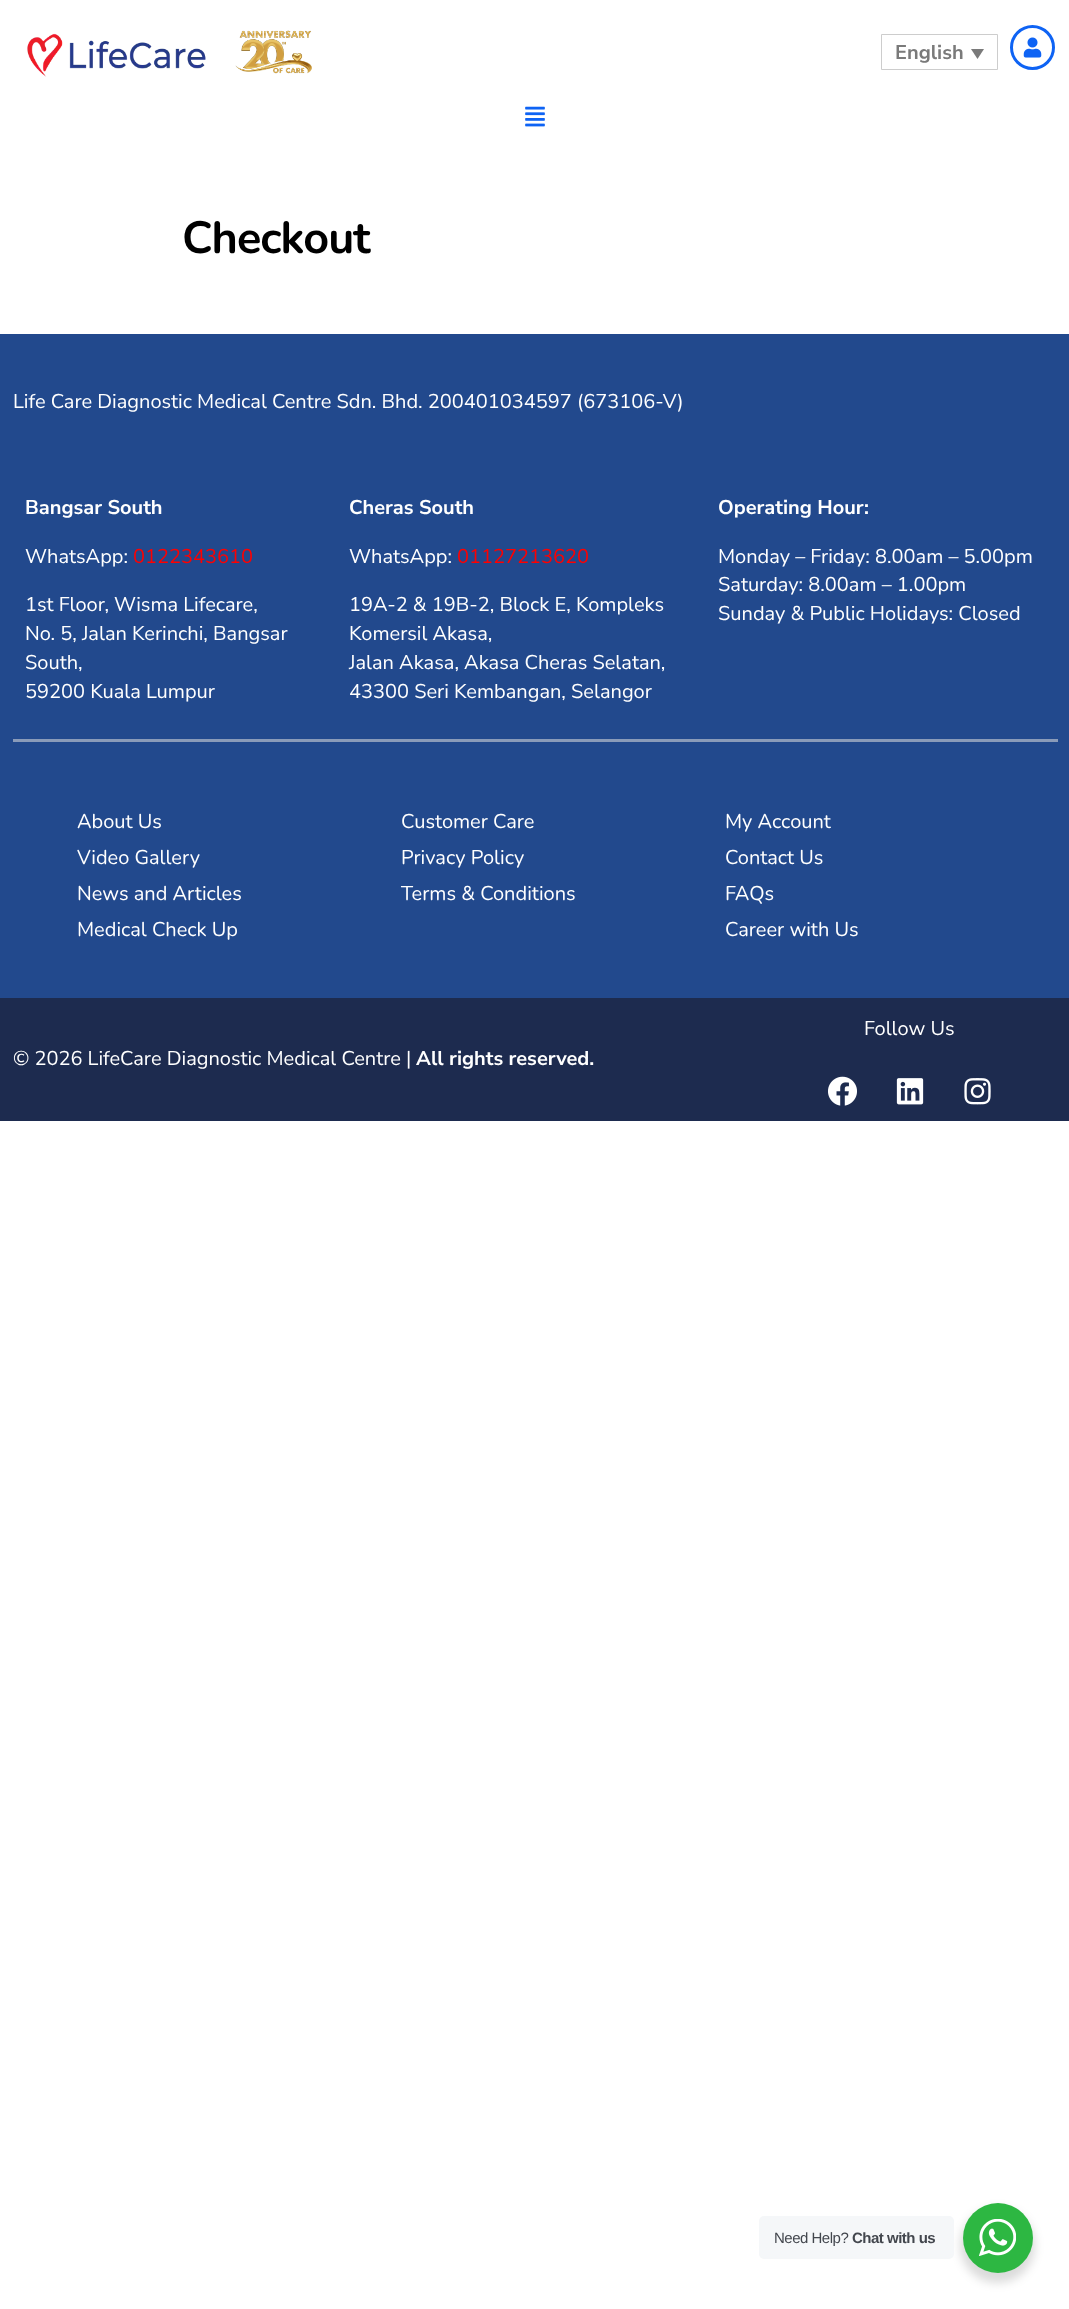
<svg xmlns="http://www.w3.org/2000/svg" width="1069" height="2309" viewBox="0 0 1069 2309">
  <rect width="100%" height="100%" fill="#fff"/>
  <image x="27" y="33" width="179" height="44" href="img/1.png"/>
  <image x="235" y="30" width="77" height="44" href="img/2.png"/>
  <path d="M881.5 34.5h116v35H881.5z" fill="none" stroke="#cdcdcd"/>
  <path d="M971 49H984L977.5 59Z" fill="#7a7a7a"/>
  <circle cx="1032.5" cy="47.5" r="21" fill="none" stroke="#0e63f4" stroke-width="3"/>
  <image x="1023" y="37" width="19" height="21" href="img/3.png"/>
  <image x="525" y="106" width="20" height="21" href="img/4.png"/>
  <path d="M0 334h1069v664H0z" fill="#22498d"/>
  <path d="M13 739h1045v3H13z" fill="#8a9bb9"/>
  <path d="M0 998h1069v123H0z" fill="#1d2b4f"/>
  <image x="828" y="1076" width="29" height="30" href="img/5.png"/>
  <image x="896" y="1078" width="28" height="27" href="img/6.png"/>
  <image x="964" y="1078" width="27" height="27" href="img/7.png"/>
  <rect x="960" y="2208" width="75" height="75" rx="37.5" fill="#00000024" filter="blur(5px)"/>
  <rect x="759" y="2216" width="195" height="43" rx="5" fill="#f5f7f9"/>
  <circle cx="998" cy="2238" r="35" fill="#2db742"/>
  <image x="979" y="2219" width="37" height="37" href="img/8.png"/>
  <text x="895" y="59" font-family="Nunito Sans" font-size="20" font-weight="bold" fill="#7a7a7a">English</text>
  <text x="182" y="253" font-family="Nunito" font-size="45" font-weight="bold" letter-spacing="-1" fill="#000">Checkout</text>
  <text x="13" y="408" font-family="Nunito Sans" font-size="20" fill="#fff">Life Care Diagnostic Medical Centre Sdn. Bhd. 200401034597 (673106-V)</text>
  <text x="25" y="514" font-family="Nunito Sans" font-size="20" font-weight="bold" fill="#fff">Bangsar South</text>
  <text x="25" y="563" font-family="Nunito Sans" font-size="20" fill="#fff">WhatsApp:</text>
  <text x="133" y="563" font-family="Nunito Sans" font-size="20" fill="#f00">0122343610</text>
  <g font-family="Nunito Sans" font-size="20" fill="#fff">
    <text x="25" y="611">1st Floor, Wisma Lifecare,</text>
    <text x="25" y="640">No. 5, Jalan Kerinchi, Bangsar</text>
    <text x="25" y="669">South,</text>
    <text x="25" y="698">59200 Kuala Lumpur</text>
  </g>
  <text x="349" y="514" font-family="Nunito Sans" font-size="20" font-weight="bold" fill="#fff">Cheras South</text>
  <text x="349" y="563" font-family="Nunito Sans" font-size="20" fill="#fff">WhatsApp:</text>
  <text x="457" y="563" font-family="Nunito Sans" font-size="20" fill="#f00">01127213620</text>
  <g font-family="Nunito Sans" font-size="20" fill="#fff">
    <text x="349" y="611">19A-2 &amp; 19B-2, Block E, Kompleks</text>
    <text x="349" y="640">Komersil Akasa,</text>
    <text x="349" y="669">Jalan Akasa, Akasa Cheras Selatan,</text>
    <text x="349" y="698">43300 Seri Kembangan, Selangor</text>
  </g>
  <text x="718" y="514" font-family="Nunito Sans" font-size="20" font-weight="bold" fill="#fff">Operating Hour:</text>
  <g font-family="Nunito Sans" font-size="20" fill="#fff">
    <text x="718" y="563">Monday – Friday: 8.00am – 5.00pm</text>
    <text x="718" y="591">Saturday: 8.00am – 1.00pm</text>
    <text x="718" y="620">Sunday &amp; Public Holidays: Closed</text>
  </g>
  <g font-family="Nunito" font-size="20" fill="#fff">
    <text x="77" y="828">About Us</text>
    <text x="77" y="864">Video Gallery</text>
    <text x="77" y="900">News and Articles</text>
    <text x="77" y="936">Medical Check Up</text>
    <text x="401" y="828">Customer Care</text>
    <text x="401" y="864">Privacy Policy</text>
    <text x="401" y="900">Terms &amp; Conditions</text>
    <text x="725" y="828">My Account</text>
    <text x="725" y="864">Contact Us</text>
    <text x="725" y="900">FAQs</text>
    <text x="725" y="936">Career with Us</text>
  </g>
  <g font-family="Nunito Sans" font-size="20" fill="#fff">
    <text x="864" y="1035">Follow Us</text>
    <text x="13" y="1065">© 2026 LifeCare Diagnostic Medical Centre |</text>
  </g>
  <text x="416" y="1065" font-family="Nunito Sans" font-size="20" font-weight="bold" fill="#fff">All rights reserved.</text>
  <text x="774" y="2243" font-family="Liberation Sans" font-size="15" letter-spacing="-0.5" fill="#43474e">Need Help?</text>
  <text x="852" y="2243" font-family="Liberation Sans" font-size="15" font-weight="bold" letter-spacing="-0.5" fill="#43474e">Chat with us</text>
</svg>
